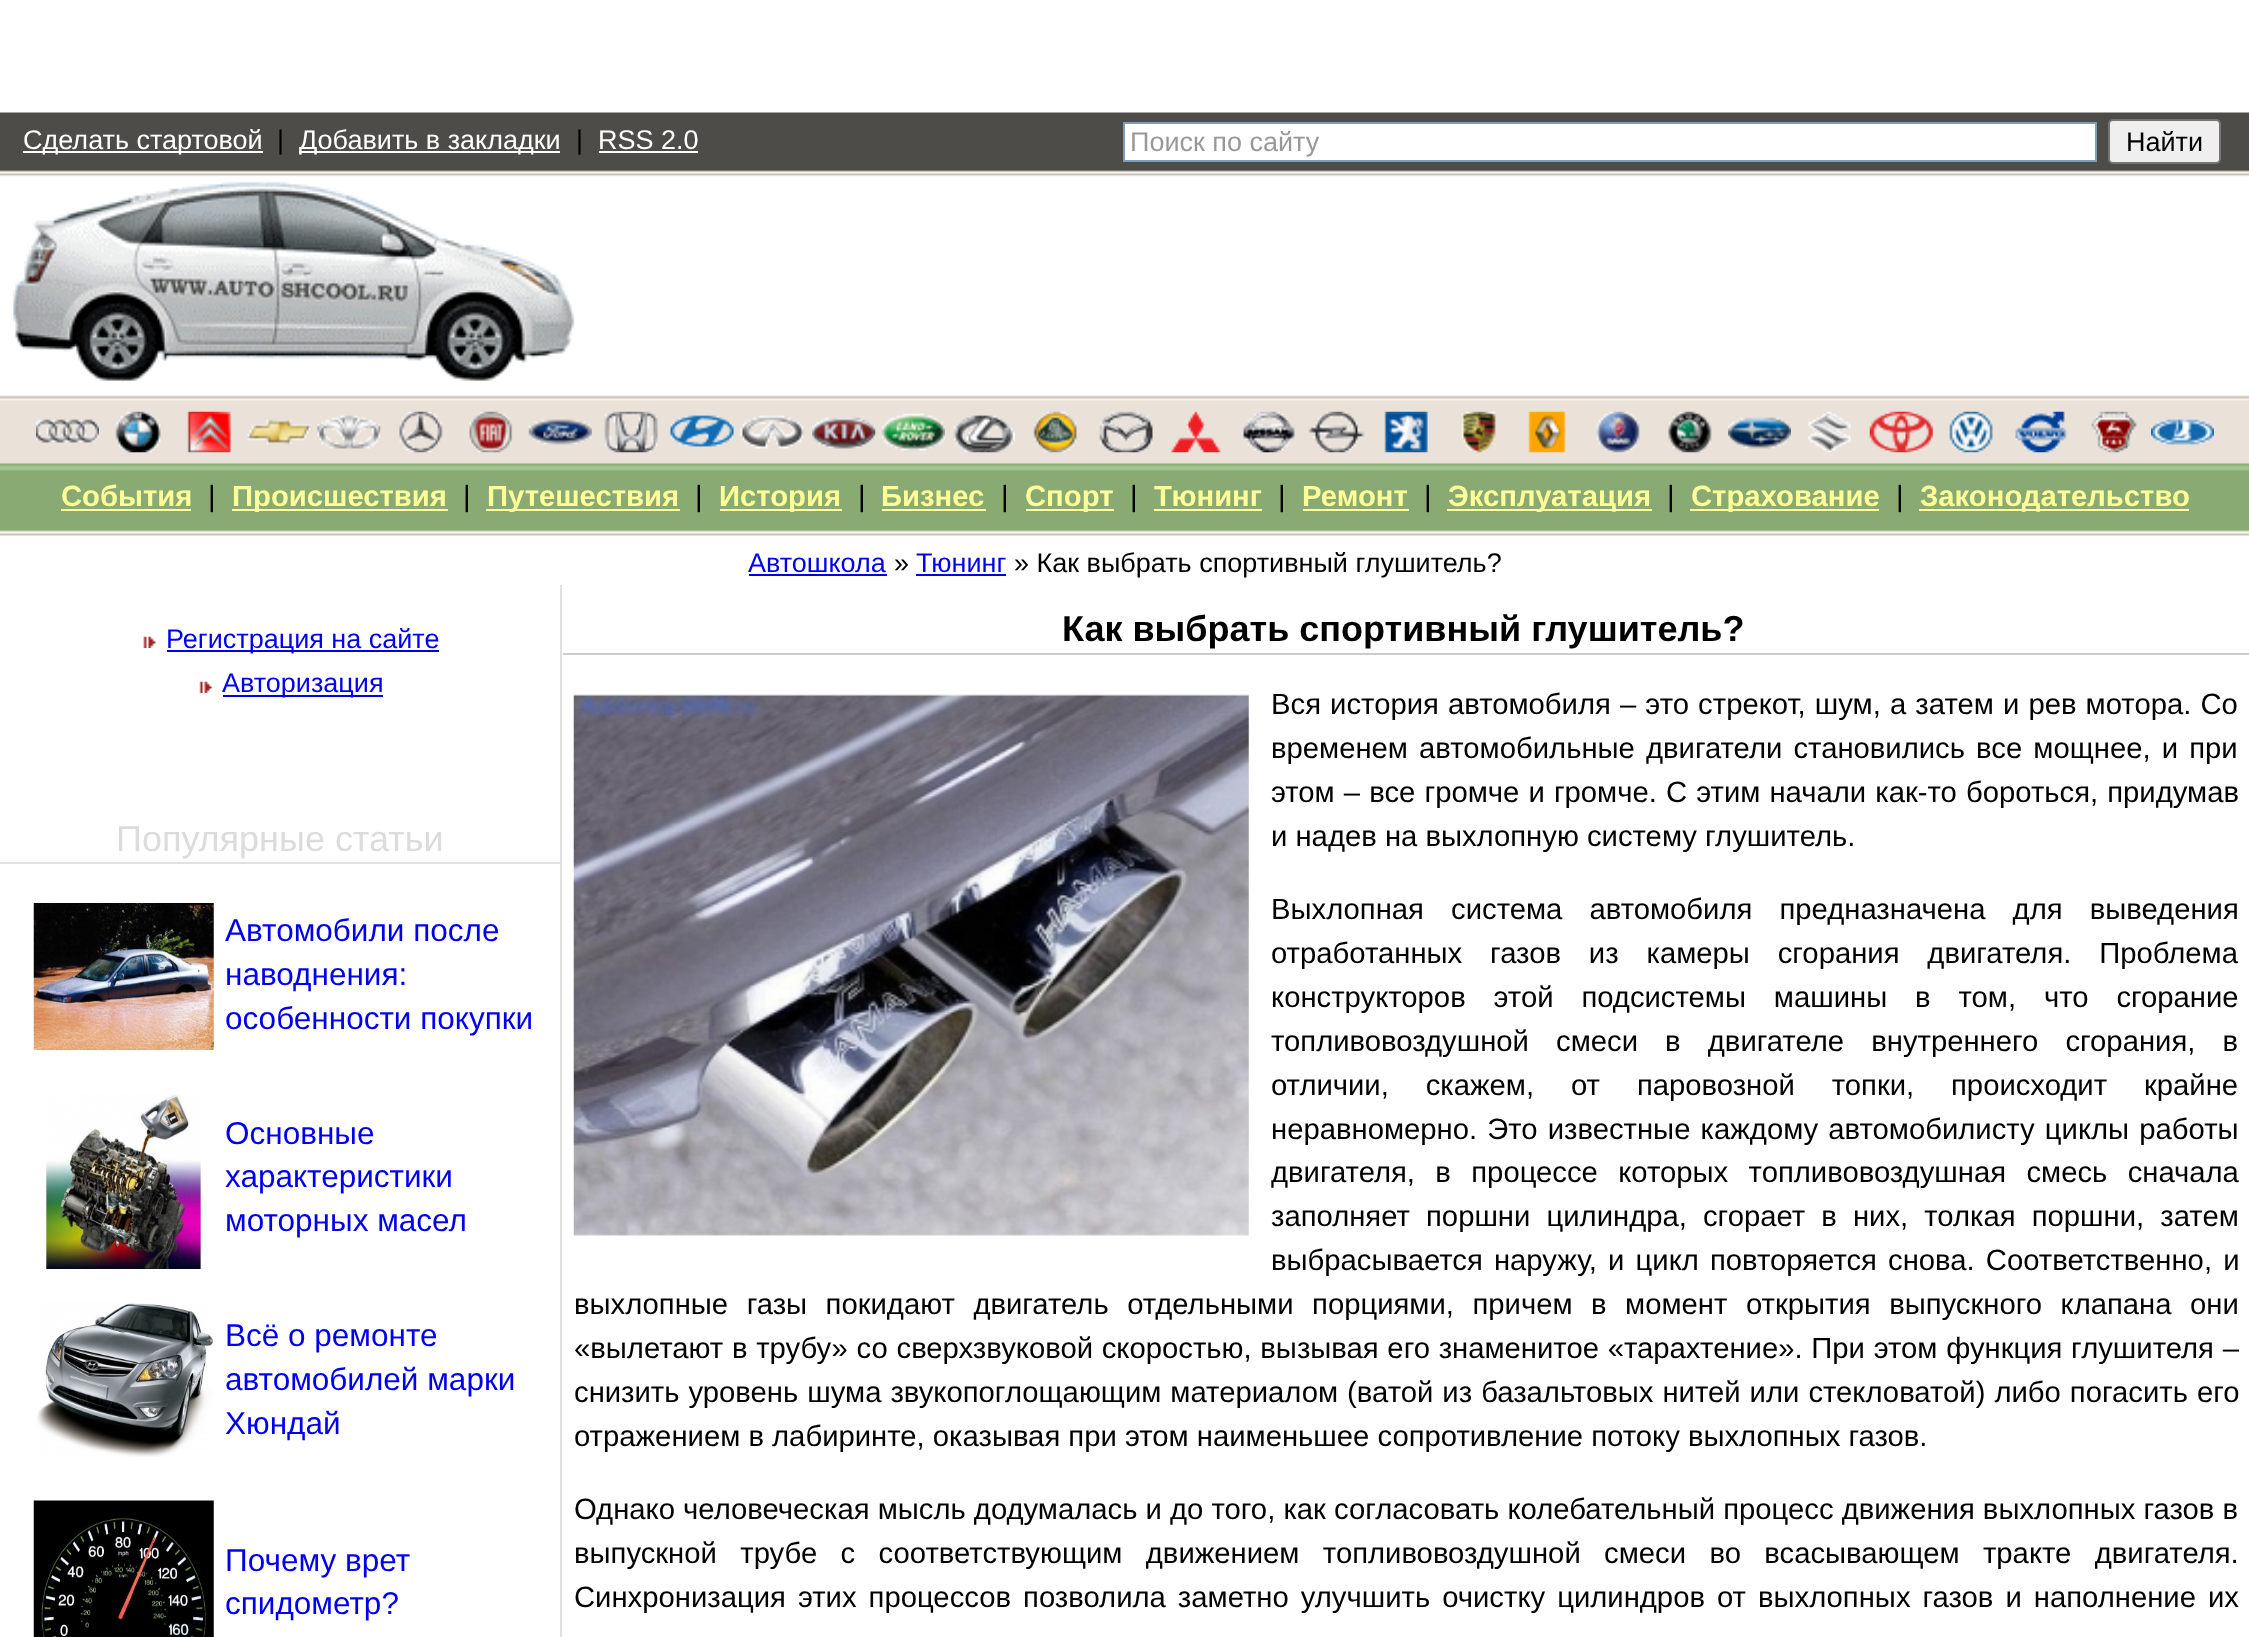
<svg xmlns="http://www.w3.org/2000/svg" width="2249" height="1637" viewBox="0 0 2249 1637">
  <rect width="100%" height="100%" fill="#fff"/>
  <image x="0" y="112" width="2249" height="424" href="img/1.png"/>
  <path d="M23 151h240v2H23z" fill="#fff"/>
  <path d="M299 151h261v2H299z" fill="#fff"/>
  <path d="M599 151h99v2H599z" fill="#fff"/>
  <path d="M1124 123h972v38H1124z" fill="#fff" stroke="#7f9db9" stroke-width="2"/>
  <rect x="2109" y="120" width="111" height="43" rx="4" fill="#efefef" stroke="#767676" stroke-width="2"/>
  <image x="11" y="181" width="564" height="202" href="img/2.png"/>
  <image x="36" y="419" width="63" height="24" href="img/3.png"/>
  <image x="115" y="411" width="46" height="42" href="img/4.png"/>
  <image x="187" y="411" width="44" height="42" href="img/5.png"/>
  <image x="247" y="419" width="64" height="26" href="img/6.png"/>
  <image x="317" y="415" width="64" height="34" href="img/7.png"/>
  <image x="399" y="411" width="44" height="42" href="img/8.png"/>
  <image x="469" y="411" width="44" height="42" href="img/9.png"/>
  <image x="528" y="419" width="64" height="26" href="img/10.png"/>
  <image x="604" y="411" width="54" height="42" href="img/11.png"/>
  <image x="670" y="415" width="64" height="32" href="img/12.png"/>
  <image x="740" y="415" width="64" height="34" href="img/13.png"/>
  <image x="812" y="417" width="64" height="32" href="img/14.png"/>
  <image x="882" y="413" width="63" height="38" href="img/15.png"/>
  <image x="953" y="415" width="62" height="38" href="img/16.png"/>
  <image x="1033" y="411" width="44" height="42" href="img/17.png"/>
  <image x="1099" y="411" width="54" height="42" href="img/18.png"/>
  <image x="1171" y="411" width="50" height="42" href="img/19.png"/>
  <image x="1243" y="411" width="52" height="42" href="img/20.png"/>
  <image x="1308" y="411" width="57" height="42" href="img/21.png"/>
  <image x="1384" y="411" width="44" height="42" href="img/22.png"/>
  <image x="1461" y="411" width="35" height="42" href="img/23.png"/>
  <image x="1528" y="411" width="38" height="42" href="img/24.png"/>
  <image x="1596" y="411" width="44" height="42" href="img/25.png"/>
  <image x="1668" y="411" width="44" height="42" href="img/26.png"/>
  <image x="1728" y="417" width="63" height="32" href="img/27.png"/>
  <image x="1807" y="411" width="44" height="42" href="img/28.png"/>
  <image x="1869" y="411" width="64" height="42" href="img/29.png"/>
  <image x="1949" y="411" width="44" height="42" href="img/30.png"/>
  <image x="2015" y="411" width="52" height="42" href="img/31.png"/>
  <image x="2091" y="411" width="46" height="42" href="img/32.png"/>
  <image x="2151" y="419" width="63" height="26" href="img/33.png"/>
  <path d="M61 509h130v2H61z" fill="#ff9"/>
  <path d="M232 509h216v2H232z" fill="#ff9"/>
  <path d="M486 509h194v2H486z" fill="#ff9"/>
  <path d="M720 509h122v2H720z" fill="#ff9"/>
  <path d="M882 509h104v2H882z" fill="#ff9"/>
  <path d="M1026 509h88v2H1026z" fill="#ff9"/>
  <path d="M1154 509h108v2H1154z" fill="#ff9"/>
  <path d="M1303 509h106v2H1303z" fill="#ff9"/>
  <path d="M1447 509h205v2H1447z" fill="#ff9"/>
  <path d="M1690 509h189v2H1690z" fill="#ff9"/>
  <path d="M1919 509h270v2H1919z" fill="#ff9"/>
  <path d="M749 574h138v2H749z" fill="#00e"/>
  <path d="M916 574h90v2H916z" fill="#00e"/>
  <image x="143" y="636" width="13" height="12" href="img/34.png"/>
  <path d="M167 650h272v2H167z" fill="#00e"/>
  <image x="199" y="681" width="14" height="12" href="img/35.png"/>
  <path d="M223 695h160v2H223z" fill="#00e"/>
  <path d="M0 862h560v2H0z" fill="#e1e1e3"/>
  <image x="33" y="903" width="181" height="149" href="img/36.png"/>
  <image x="45" y="1094" width="156" height="175" href="img/37.png"/>
  <image x="36" y="1302" width="178" height="155" href="img/38.png"/>
  <image x="33" y="1500" width="181" height="137" href="img/39.png"/>
  <path d="M560 585h2v1052H560z" fill="#e1e1e3"/>
  <path d="M563 653h1686v2H563z" fill="#ccc"/>
  <image x="573" y="694" width="676" height="542" href="img/40.png"/>
  <text x="23" y="149" font-family="Liberation Sans" font-size="27" fill="#fff">Сделать стартовой</text>
  <text x="277" y="149" font-family="Liberation Sans" font-size="27" fill="#000">|</text>
  <text x="299" y="149" font-family="Liberation Sans" font-size="27" fill="#fff">Добавить в закладки</text>
  <text x="576" y="149" font-family="Liberation Sans" font-size="27" fill="#000">|</text>
  <text x="598" y="149" font-family="Liberation Sans" font-size="27" fill="#fff">RSS 2.0</text>
  <text x="1130" y="151" font-family="Liberation Sans" font-size="27" fill="#999">Поиск по сайту</text>
  <text x="2126" y="151" font-family="Liberation Sans" font-size="27" fill="#000">Найти</text>
  <text x="61" y="506" font-family="Liberation Sans" font-size="29.25" font-weight="bold" fill="#ff9">События</text>
  <text x="208" y="506" font-family="Liberation Sans" font-size="29.25" fill="#000">|</text>
  <text x="232" y="506" font-family="Liberation Sans" font-size="29.25" font-weight="bold" fill="#ff9">Происшествия</text>
  <text x="463" y="506" font-family="Liberation Sans" font-size="29.25" fill="#000">|</text>
  <text x="487" y="506" font-family="Liberation Sans" font-size="29.25" font-weight="bold" fill="#ff9">Путешествия</text>
  <text x="695" y="506" font-family="Liberation Sans" font-size="29.25" fill="#000">|</text>
  <text x="719" y="506" font-family="Liberation Sans" font-size="29.25" font-weight="bold" fill="#ff9">История</text>
  <text x="858" y="506" font-family="Liberation Sans" font-size="29.25" fill="#000">|</text>
  <text x="881" y="506" font-family="Liberation Sans" font-size="29.25" font-weight="bold" fill="#ff9">Бизнес</text>
  <text x="1001" y="506" font-family="Liberation Sans" font-size="29.25" fill="#000">|</text>
  <text x="1025" y="506" font-family="Liberation Sans" font-size="29.25" font-weight="bold" fill="#ff9">Спорт</text>
  <text x="1130" y="506" font-family="Liberation Sans" font-size="29.25" fill="#000">|</text>
  <text x="1154" y="506" font-family="Liberation Sans" font-size="29.25" font-weight="bold" fill="#ff9">Тюнинг</text>
  <text x="1278" y="506" font-family="Liberation Sans" font-size="29.25" fill="#000">|</text>
  <text x="1302" y="506" font-family="Liberation Sans" font-size="29.25" font-weight="bold" fill="#ff9">Ремонт</text>
  <text x="1424" y="506" font-family="Liberation Sans" font-size="29.25" fill="#000">|</text>
  <text x="1448" y="506" font-family="Liberation Sans" font-size="29.25" font-weight="bold" fill="#ff9">Эксплуатация</text>
  <text x="1667" y="506" font-family="Liberation Sans" font-size="29.25" fill="#000">|</text>
  <text x="1691" y="506" font-family="Liberation Sans" font-size="29.25" font-weight="bold" fill="#ff9">Страхование</text>
  <text x="1896" y="506" font-family="Liberation Sans" font-size="29.25" fill="#000">|</text>
  <text x="1920" y="506" font-family="Liberation Sans" font-size="29.25" font-weight="bold" fill="#ff9">Законодательство</text>
  <text x="748" y="572" font-family="Liberation Sans" font-size="27" fill="#00e">Автошкола</text>
  <text x="894" y="572" font-family="Liberation Sans" font-size="27" fill="#000">»</text>
  <text x="916" y="572" font-family="Liberation Sans" font-size="27" fill="#00e">Тюнинг</text>
  <text x="1014" y="572" font-family="Liberation Sans" font-size="27" fill="#000">» Как выбрать спортивный глушитель?</text>
  <g font-family="Liberation Sans" font-size="27" fill="#00e">
    <text x="166" y="648">Регистрация на сайте</text>
    <text x="222" y="692">Авторизация</text>
  </g>
  <text x="116" y="851" font-family="Liberation Sans" font-size="36" fill="#dcdcdc">Популярные статьи</text>
  <g font-family="Liberation Sans" font-size="31.5" fill="#00e">
    <text x="225" y="941">Автомобили после</text>
    <text x="225" y="985">наводнения:</text>
    <text x="225" y="1029">особенности покупки</text>
    <text x="225" y="1144">Основные</text>
    <text x="225" y="1187">характеристики</text>
    <text x="225" y="1231">моторных масел</text>
    <text x="225" y="1346">Всё о ремонте</text>
    <text x="225" y="1390">автомобилей марки</text>
    <text x="225" y="1434">Хюндай</text>
    <text x="225" y="1571">Почему врет</text>
    <text x="225" y="1614">спидометр?</text>
  </g>
  <text x="1062" y="641" font-family="Liberation Sans" font-size="36" font-weight="bold" fill="#000">Как выбрать спортивный глушитель?</text>
  <g font-family="Liberation Sans" font-size="29.25" fill="#000">
    <text x="1271" y="714" word-spacing="1">Вся история автомобиля – это стрекот, шум, а затем и рев мотора. Со</text>
    <text x="1271" y="758" word-spacing="3">временем автомобильные двигатели становились все мощнее, и при</text>
    <text x="1271" y="802" word-spacing="1">этом – все громче и громче. С этим начали как-то бороться, придумав</text>
    <text x="1271" y="846">и надев на выхлопную систему глушитель.</text>
    <text x="1271" y="919" word-spacing="19">Выхлопная система автомобиля предназначена для выведения</text>
    <text x="1271" y="963" word-spacing="19.75">отработанных газов из камеры сгорания двигателя. Проблема</text>
    <text x="1271" y="1007" word-spacing="19.75">конструкторов этой подсистемы машины в том, что сгорание</text>
    <text x="1271" y="1051" word-spacing="19">топливовоздушной смеси в двигателе внутреннего сгорания, в</text>
    <text x="1271" y="1095" word-spacing="28.75">отличии, скажем, от паровозной топки, происходит крайне</text>
    <text x="1271" y="1139" word-spacing="2">неравномерно. Это известные каждому автомобилисту циклы работы</text>
    <text x="1271" y="1182" word-spacing="12.25">двигателя, в процессе которых топливовоздушная смесь сначала</text>
    <text x="1271" y="1226" word-spacing="8">заполняет поршни цилиндра, сгорает в них, толкая поршни, затем</text>
    <text x="1271" y="1270" word-spacing="3">выбрасывается наружу, и цикл повторяется снова. Соответственно, и</text>
    <text x="574" y="1314" word-spacing="10.4">выхлопные газы покидают двигатель отдельными порциями, причем в момент открытия выпускного клапана они</text>
    <text x="574" y="1358" word-spacing="0.6">«вылетают в трубу» со сверхзвуковой скоростью, вызывая его знаменитое «тарахтение». При этом функция глушителя –</text>
    <text x="574" y="1402" word-spacing="0.9">снизить уровень шума звукопоглощающим материалом (ватой из базальтовых нитей или стекловатой) либо погасить его</text>
    <text x="574" y="1446">отражением в лабиринте, оказывая при этом наименьшее сопротивление потоку выхлопных газов.</text>
    <text x="574" y="1519">Однако человеческая мысль додумалась и до того, как согласовать колебательный процесс движения выхлопных газов в</text>
    <text x="574" y="1563" word-spacing="15.25">выпускной трубе с соответствующим движением топливовоздушной смеси во всасывающем тракте двигателя.</text>
    <text x="574" y="1607" word-spacing="3.9">Синхронизация этих процессов позволила заметно улучшить очистку цилиндров от выхлопных газов и наполнение их</text>
  </g>
</svg>
